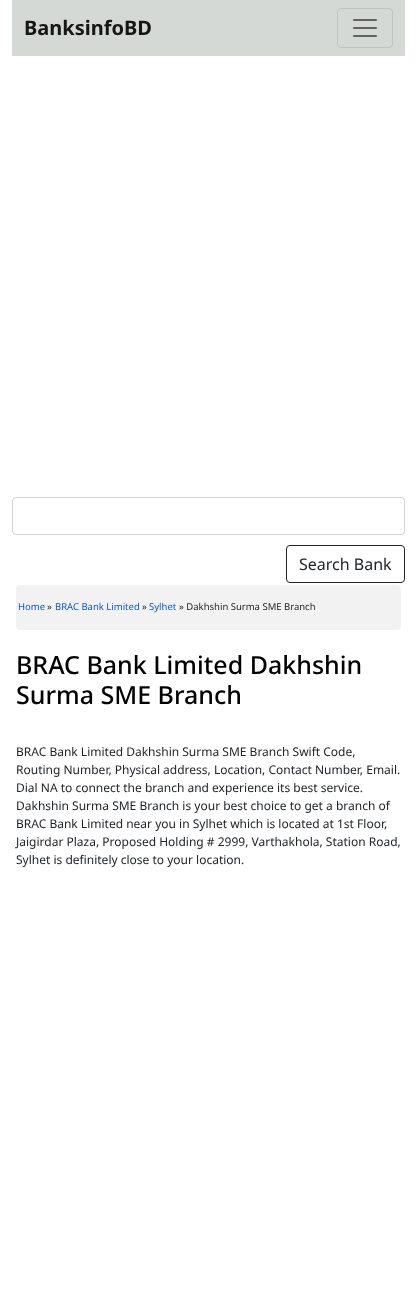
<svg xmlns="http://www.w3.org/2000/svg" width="417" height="1301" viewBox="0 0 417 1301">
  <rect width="100%" height="100%" fill="#fff"/>
  <path d="M12 0h393v56H12z" fill="#d4d9d6"/>
  <rect x="337.5" y="8.5" width="55" height="39" rx="3.5" fill="none" stroke="#bfc3c1"/>
  <image x="353" y="19" width="24" height="18" href="img/1.png"/>
  <rect x="12.5" y="497.5" width="392" height="37" rx="3.5" fill="none" stroke="#ced4da"/>
  <rect x="286.5" y="545.5" width="118" height="37" rx="3.5" fill="none" stroke="#212529"/>
  <rect x="16" y="585" width="385" height="45" rx="4" fill="#f2f2f2"/>
  <text x="24" y="35" font-family="Noto Sans" font-size="20" font-weight="bold" fill="#151615">BanksinfoBD</text>
  <text x="299" y="570" font-family="Noto Sans" font-size="16" fill="#212529">Search Bank</text>
  <text x="18" y="610" font-family="Noto Sans" font-size="9.5" fill="#0a58d4">Home</text>
  <text x="47" y="610" font-family="Noto Sans" font-size="9.5" fill="#212529">»</text>
  <text x="55" y="610" font-family="Noto Sans" font-size="9.5" fill="#0a58d4">BRAC Bank Limited</text>
  <text x="142" y="610" font-family="Noto Sans" font-size="9.5" fill="#212529">»</text>
  <text x="149" y="610" font-family="Noto Sans" font-size="9.5" fill="#0a58d4">Sylhet</text>
  <text x="179" y="610" font-family="Noto Sans" font-size="9.5" fill="#212529">» Dakhshin Surma SME Branch</text>
  <g font-family="Noto Sans" font-size="25" font-weight="500" fill="#000">
    <text x="16" y="674">BRAC Bank Limited Dakhshin</text>
    <text x="16" y="704">Surma SME Branch</text>
  </g>
  <g font-family="Noto Sans" font-size="12" fill="#212529">
    <text x="16" y="756">BRAC Bank Limited Dakhshin Surma SME Branch Swift Code,</text>
    <text x="16" y="774">Routing Number, Physical address, Location, Contact Number, Email.</text>
    <text x="16" y="792">Dial NA to connect the branch and experience its best service.</text>
    <text x="16" y="810">Dakhshin Surma SME Branch is your best choice to get a branch of</text>
    <text x="16" y="828">BRAC Bank Limited near you in Sylhet which is located at 1st Floor,</text>
    <text x="16" y="846">Jaigirdar Plaza, Proposed Holding # 2999, Varthakhola, Station Road,</text>
    <text x="16" y="864">Sylhet is definitely close to your location.</text>
  </g>
</svg>
